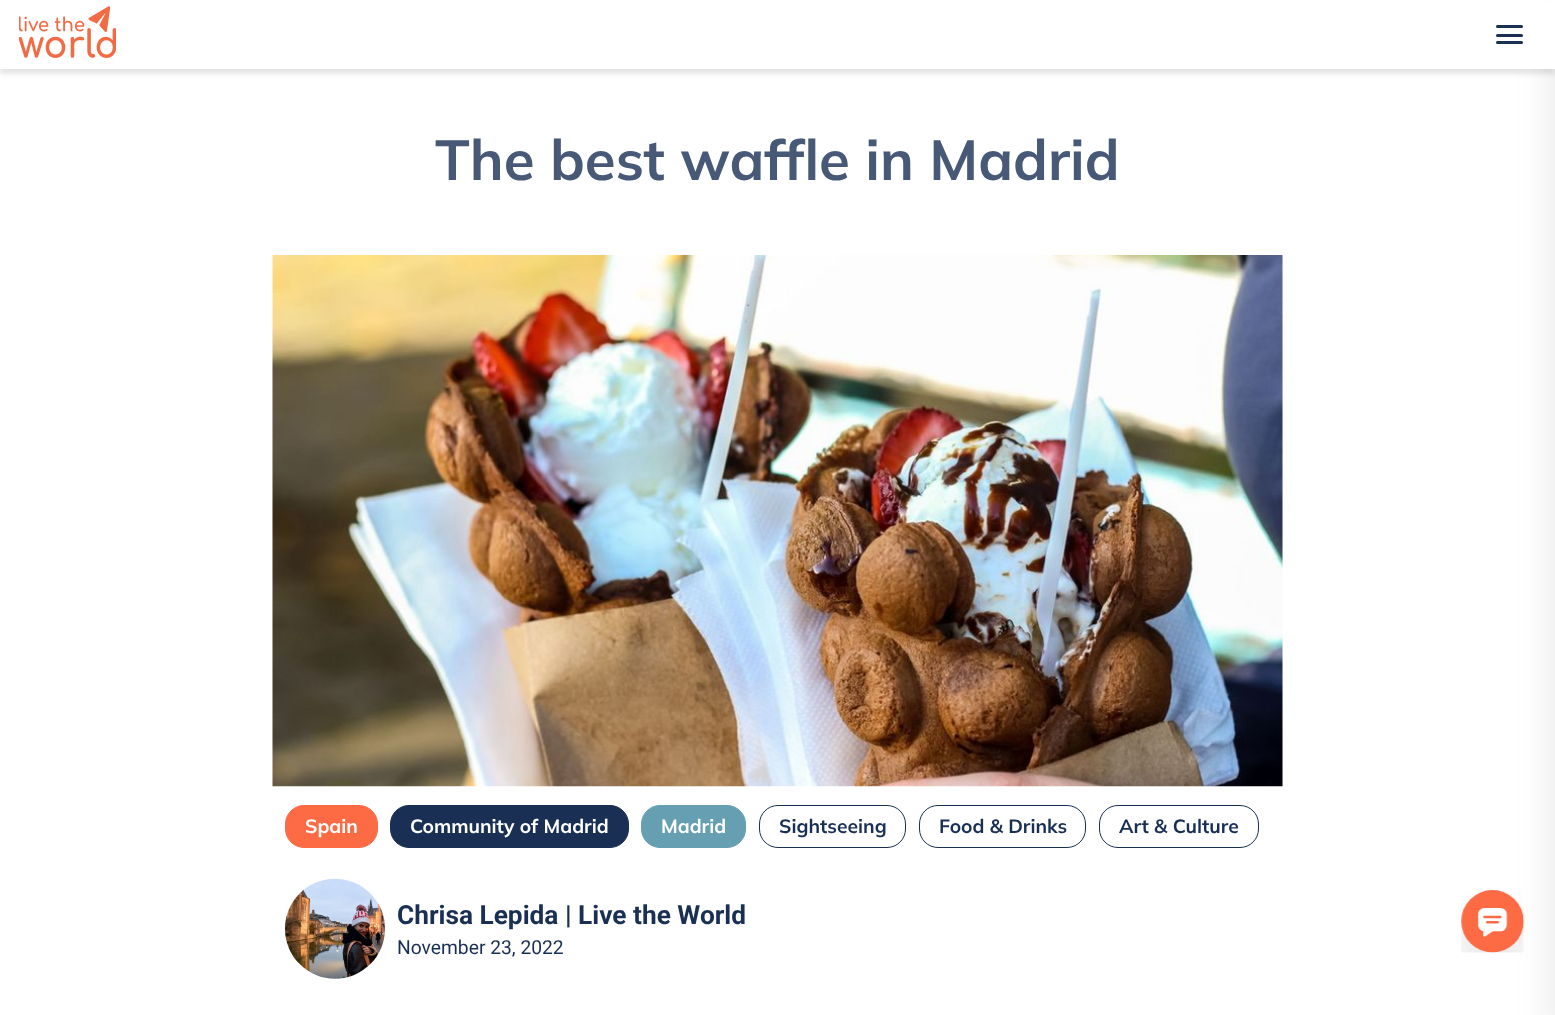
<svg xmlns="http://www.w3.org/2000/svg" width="1555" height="1015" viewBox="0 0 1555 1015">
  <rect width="100%" height="100%" fill="#fff"/>
  <path d="M0 5h1555v69H0z" fill="#0000001a" filter="blur(2.5px)"/>
  <path d="M1555 25h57v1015H1555z" fill="#0000001a" filter="blur(19px)"/>
  <path d="M0 1h1555v68H0z" fill="#fff"/>
  <image x="19" y="6" width="97" height="52" href="img/1.png"/>
  <rect x="1496" y="25" width="27" height="3" rx="1.5" fill="#192f54"/>
  <rect x="1496" y="34" width="27" height="3" rx="1.5" fill="#192f54"/>
  <rect x="1496" y="41" width="27" height="3" rx="1.5" fill="#192f54"/>
  <image x="272" y="255" width="1011" height="532" href="img/2.png"/>
  <rect x="285.5" y="805.5" width="92" height="42" rx="18.5" fill="#fc6b43" stroke="#fc6b43"/>
  <rect x="390.5" y="805.5" width="238" height="42" rx="18.5" fill="#192f54" stroke="#192f54"/>
  <rect x="641.5" y="805.5" width="104" height="42" rx="18.5" fill="#669fb2" stroke="#669fb2"/>
  <rect x="759.5" y="805.5" width="146" height="42" rx="18.5" fill="none" stroke="#192f54"/>
  <rect x="919.5" y="805.5" width="166" height="42" rx="18.5" fill="none" stroke="#192f54"/>
  <rect x="1099.5" y="805.5" width="159" height="42" rx="18.5" fill="none" stroke="#192f54"/>
  <image x="285" y="878" width="100" height="101" href="img/3.png"/>
  <image x="1461" y="890" width="64" height="63" href="img/4.png"/>
  <text x="435" y="180" font-family="Mulish" font-size="56.25" font-weight="bold" fill="#475976">The best waffle in Madrid</text>
  <g font-family="Mulish" font-size="19.25" font-weight="bold" fill="#fff">
    <text x="305" y="833">Spain</text>
    <text x="410" y="833">Community of Madrid</text>
    <text x="661" y="833">Madrid</text>
  </g>
  <g font-family="Mulish" font-size="19.25" font-weight="bold" fill="#192f54">
    <text x="779" y="833">Sightseeing</text>
    <text x="939" y="833">Food &amp; Drinks</text>
    <text x="1119" y="833">Art &amp; Culture</text>
  </g>
  <text x="397" y="924" font-family="Roboto" font-size="26.25" font-weight="bold" fill="#192f54">Chrisa Lepida | Live the World</text>
  <text x="397" y="954" font-family="Roboto" font-size="19.25" fill="#192f54">November 23, 2022</text>
</svg>
